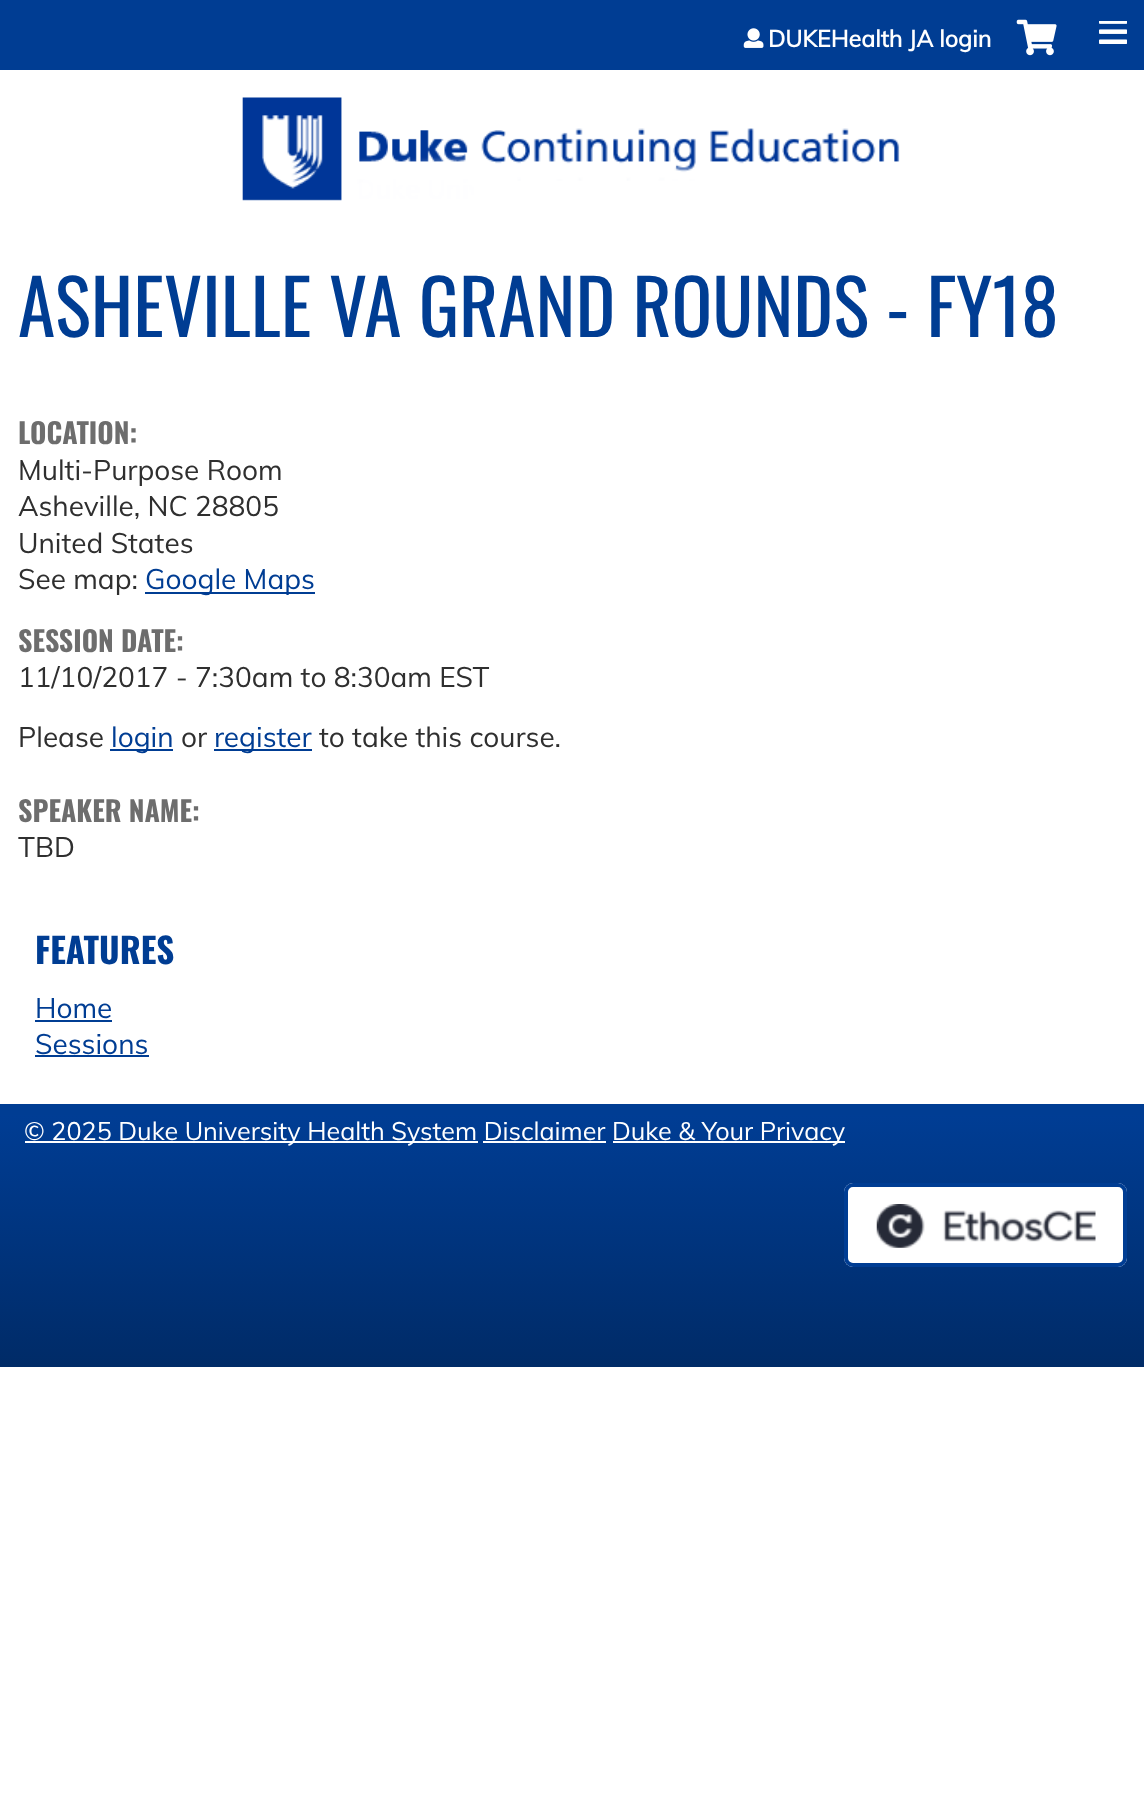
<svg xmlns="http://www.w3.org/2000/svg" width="1144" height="1817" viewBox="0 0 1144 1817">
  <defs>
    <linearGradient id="g1" gradientUnits="userSpaceOnUse" x1="572" y1="1367" x2="572" y2="1115"><stop offset="0" stop-color="#002b67"/><stop offset="1" stop-color="#003d94"/></linearGradient>
  </defs>
  <rect width="100%" height="100%" fill="#fff"/>
  <path d="M0 0h1144v70H0z" fill="#003d93"/>
  <image x="743" y="28" width="21" height="20" href="img/1.png"/>
  <image x="1016" y="19" width="41" height="37" href="img/2.png"/>
  <image x="1099" y="21" width="28" height="23" href="img/3.png"/>
  <image x="242" y="97" width="658" height="104" href="img/4.png"/>
  <path d="M145 592h170v2H145z" fill="#003d93"/>
  <path d="M110 749h63v2H110z" fill="#003d93"/>
  <path d="M214 749h98v2H214z" fill="#003d93"/>
  <path d="M35 1020h77v2H35z" fill="#003d93"/>
  <path d="M35 1055h114v2H35z" fill="#003d93"/>
  <path d="M0 1115h1144v252H0z" fill="url(#g1)"/>
  <path d="M0 1104h1144v11H0z" fill="#003d93"/>
  <path d="M25 1141h453v2H25z" fill="#fff"/>
  <path d="M613 1141h232v2H613z" fill="#fff"/>
  <path d="M483 1141h123v2H483z" fill="#fff"/>
  <rect x="844" y="1183" width="283" height="84" rx="9" fill="#fff"/>
  <image x="876" y="1204" width="220" height="44" href="img/5.png"/>
  <rect x="846" y="1185" width="279" height="80" rx="7" fill="none" stroke="#003d93" stroke-width="4"/>
  <text x="768" y="47" font-family="Muli" font-size="23.25" font-weight="bold" fill="#fff">DUKEHealth JA login</text>
  <text x="18" y="337" font-family="Oswald" font-size="75.6" fill="#003d93">ASHEVILLE VA GRAND ROUNDS - FY18</text>
  <text x="18" y="444" font-family="Oswald" font-size="28" font-weight="bold" fill="#6d6d6d">LOCATION:</text>
  <g font-family="Muli" font-size="28" fill="#2f2f2f">
    <text x="18" y="480">Multi-Purpose Room</text>
    <text x="18" y="516">Asheville, NC 28805</text>
    <text x="18" y="553">United States</text>
    <text x="18" y="589">See map:</text>
  </g>
  <text x="145" y="589" font-family="Muli" font-size="28" fill="#003d93">Google Maps</text>
  <text x="18" y="652" font-family="Oswald" font-size="28" font-weight="bold" fill="#6d6d6d">SESSION DATE:</text>
  <g font-family="Muli" font-size="28" fill="#2f2f2f">
    <text x="18" y="687">11/10/2017 - 7:30am to 8:30am EST</text>
    <text x="18" y="747">Please</text>
  </g>
  <text x="111" y="747" font-family="Muli" font-size="28" fill="#003d93">login</text>
  <text x="181" y="747" font-family="Muli" font-size="28" fill="#2f2f2f">or</text>
  <text x="214" y="747" font-family="Muli" font-size="28" fill="#003d93">register</text>
  <text x="319" y="747" font-family="Muli" font-size="28" fill="#2f2f2f">to take this course.</text>
  <text x="18" y="822" font-family="Oswald" font-size="28" font-weight="bold" fill="#6d6d6d">SPEAKER NAME:</text>
  <text x="18" y="857" font-family="Muli" font-size="28" fill="#2f2f2f">TBD</text>
  <text x="35" y="964" font-family="Oswald" font-size="35" font-weight="bold" fill="#003d93">FEATURES</text>
  <g font-family="Muli" font-size="28" fill="#003d93">
    <text x="35" y="1018">Home</text>
    <text x="35" y="1054">Sessions</text>
  </g>
  <g font-family="Muli" font-size="25.2" fill="#fff">
    <text x="24" y="1140">© 2025 Duke University Health System Disclaimer</text>
    <text x="612" y="1140">Duke &amp; Your Privacy</text>
  </g>
</svg>
